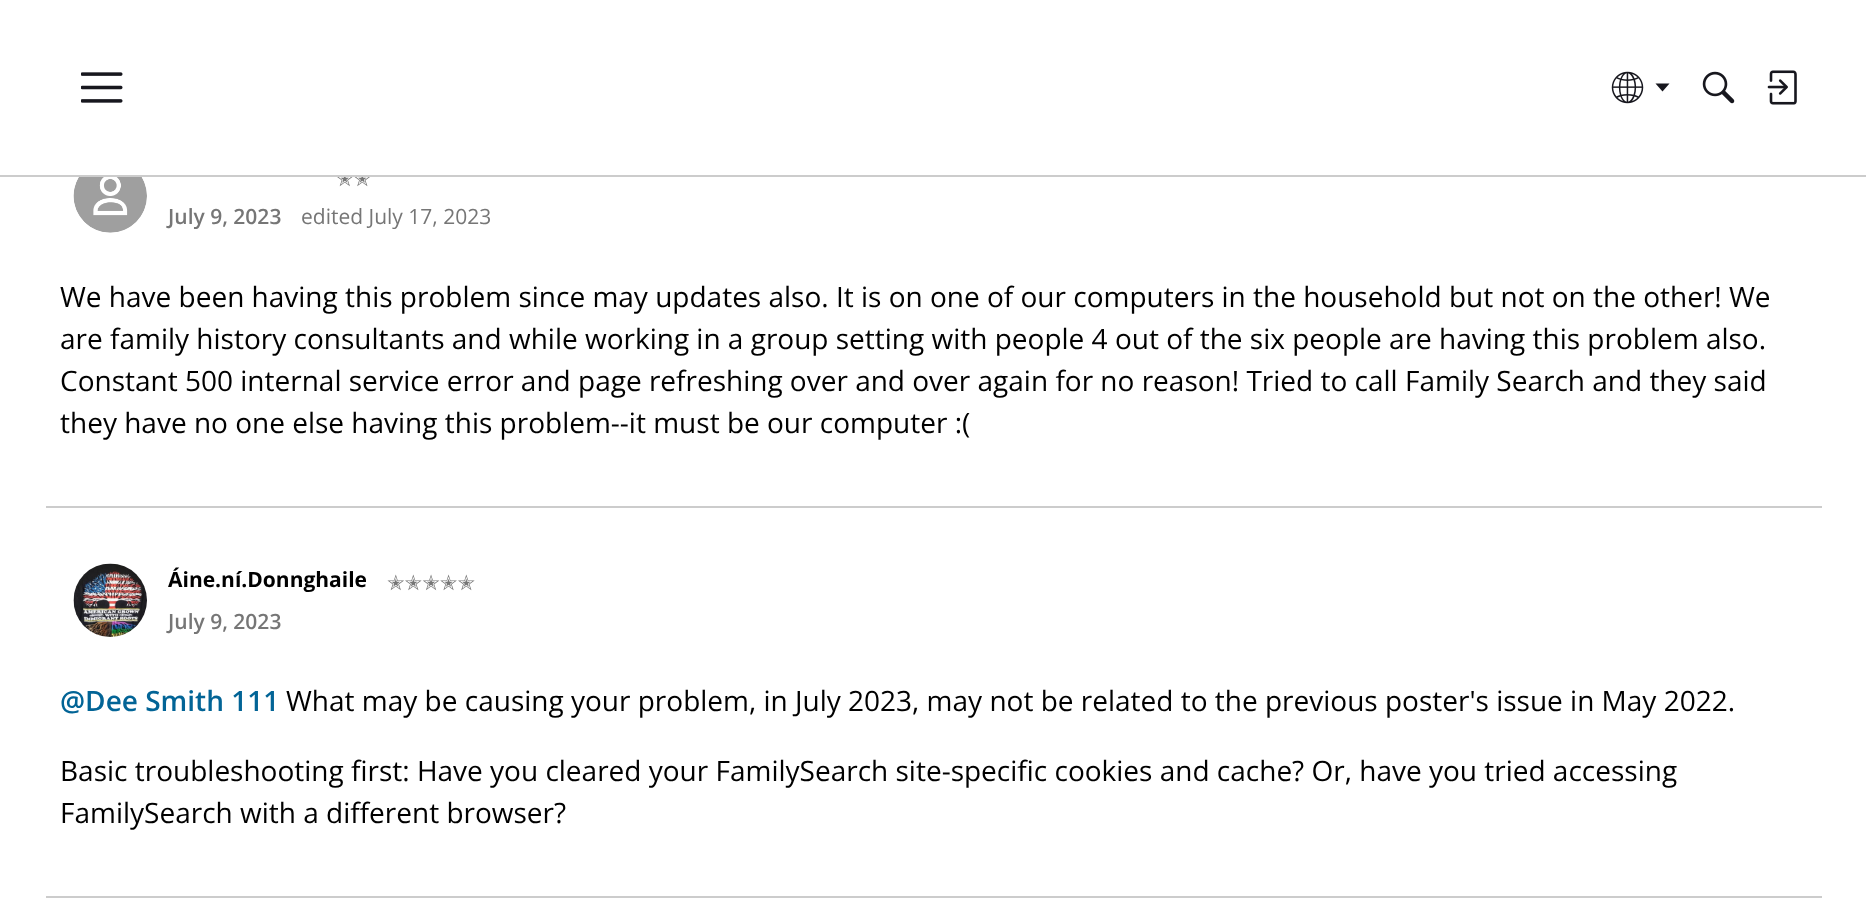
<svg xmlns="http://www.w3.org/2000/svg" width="1866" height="903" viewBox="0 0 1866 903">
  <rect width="100%" height="100%" fill="#fff"/>
  <image x="81" y="72" width="42" height="31" href="img/1.png"/>
  <image x="1611" y="71" width="33" height="33" href="img/2.png"/>
  <path d="M1655.5 83.5H1669.5L1662.5 91.5Z" fill="#17171e"/>
  <image x="1702" y="71" width="33" height="33" href="img/3.png"/>
  <image x="1767" y="70" width="30" height="35" href="img/4.png"/>
  <image x="73" y="177" width="74" height="56" href="img/5.png"/>
  <path d="M46 506h1776v2H46z" fill="#ccc"/>
  <image x="73" y="563" width="74" height="74" href="img/6.png"/>
  <path d="M46 896h1776v2H46z" fill="#ccc"/>
  <text x="336" y="186" font-family="DejaVu Sans" font-size="21" fill="#767676">✭✭</text>
  <path d="M343 170h22v5H343z" fill="#fff"/>
  <path d="M0 175h1866v2H0z" fill="#ccc"/>
  <text x="168" y="224" font-family="Open Sans" font-size="21" font-weight="600" fill="#767676">July 9, 2023</text>
  <text x="301" y="224" font-family="Open Sans" font-size="21" fill="#767676">edited July 17, 2023</text>
  <g font-family="Open Sans" font-size="28" fill="#000">
    <text x="60" y="307">We have been having this problem since may updates also. It is on one of our computers in the household but not on the other! We</text>
    <text x="60" y="349">are family history consultants and while working in a group setting with people 4 out of the six people are having this problem also.</text>
    <text x="60" y="391">Constant 500 internal service error and page refreshing over and over again for no reason! Tried to call Family Search and they said</text>
    <text x="60" y="433">they have no one else having this problem--it must be our computer :(</text>
  </g>
  <text x="168" y="587" font-family="Open Sans" font-size="21" font-weight="bold" fill="#000">Áine.ní.Donnghaile</text>
  <text x="387" y="590" font-family="DejaVu Sans" font-size="21" fill="#767676">✭✭✭✭✭</text>
  <text x="168" y="629" font-family="Open Sans" font-size="21" font-weight="600" fill="#767676">July 9, 2023</text>
  <text x="60" y="711" font-family="Open Sans" font-size="28" font-weight="600" fill="#026496">@Dee Smith 111</text>
  <g font-family="Open Sans" font-size="28" fill="#000">
    <text x="286" y="711">What may be causing your problem, in July 2023, may not be related to the previous poster's issue in May 2022.</text>
    <text x="60" y="781">Basic troubleshooting first: Have you cleared your FamilySearch site-specific cookies and cache? Or, have you tried accessing</text>
    <text x="60" y="823">FamilySearch with a different browser?</text>
  </g>
</svg>
